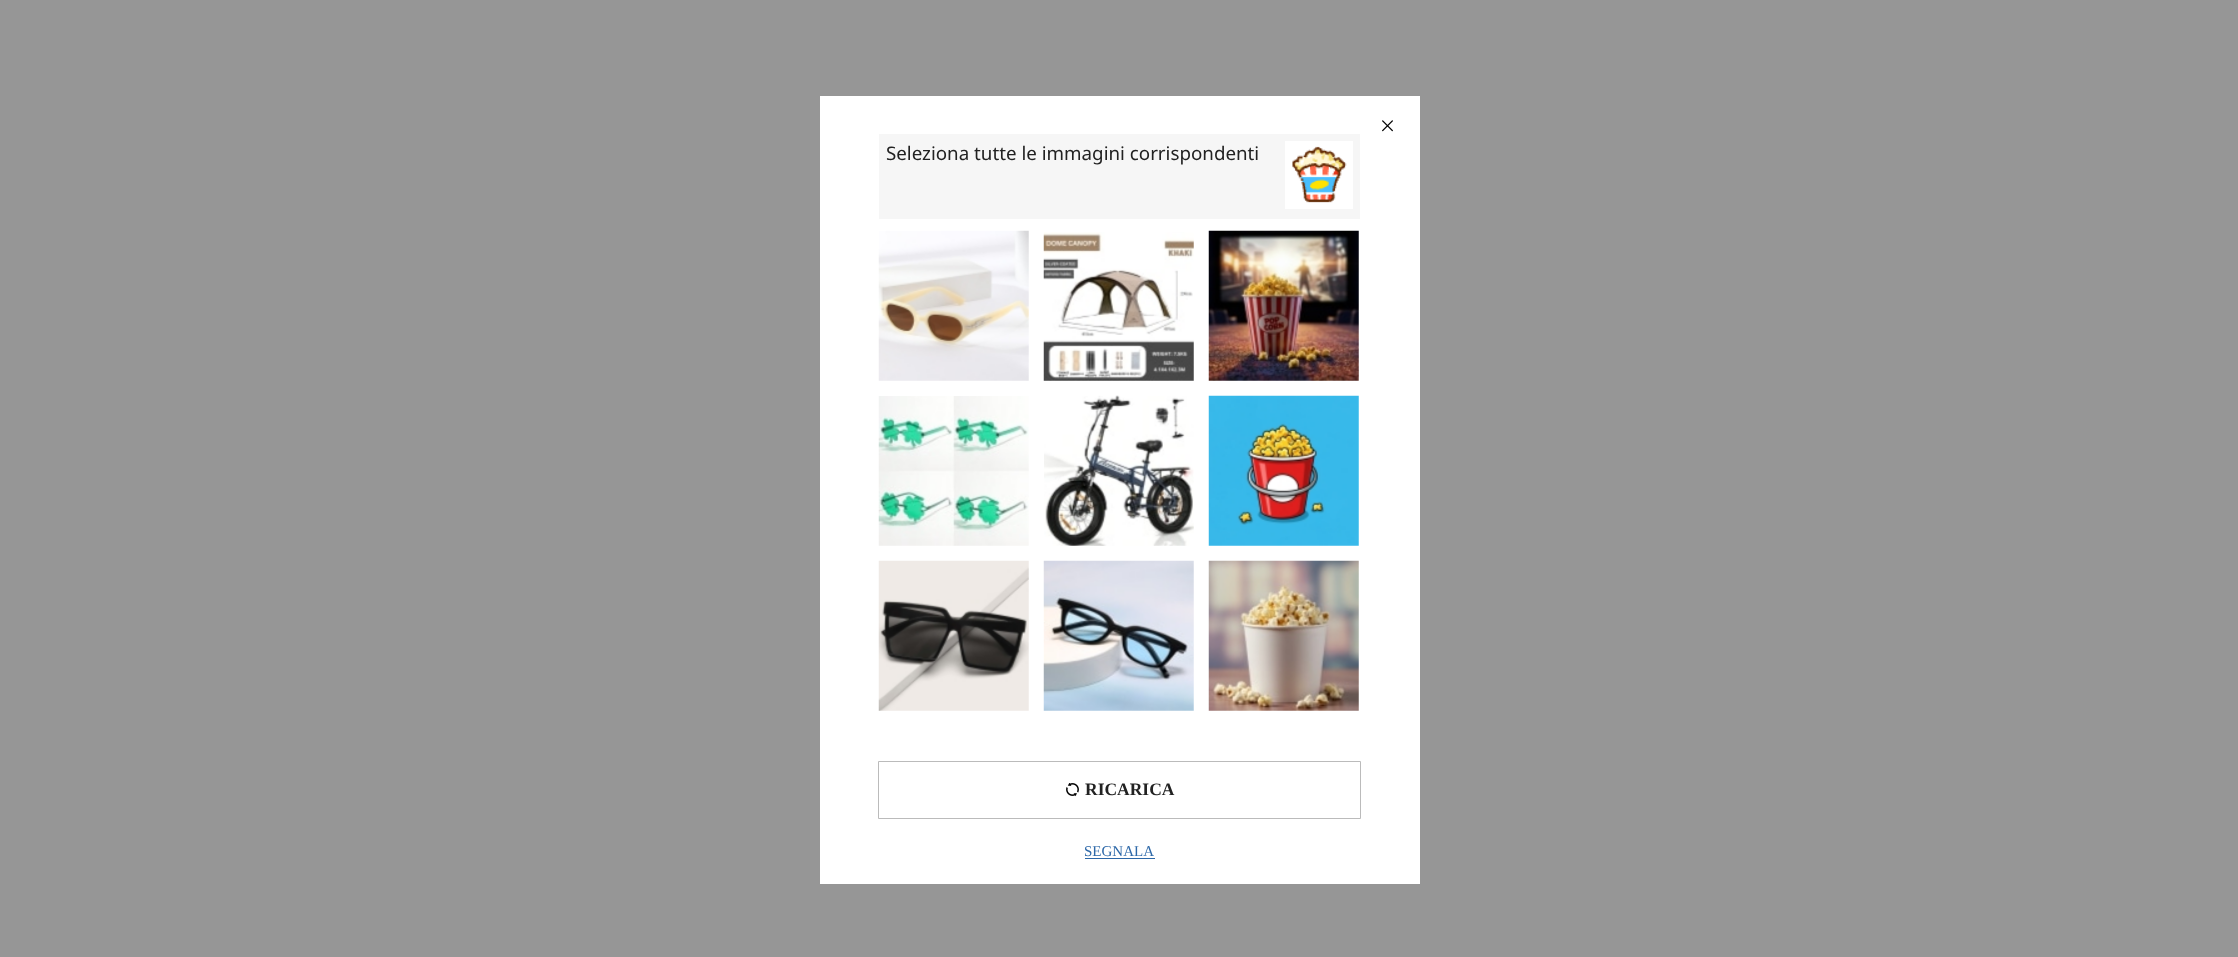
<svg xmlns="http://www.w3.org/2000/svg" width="2238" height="957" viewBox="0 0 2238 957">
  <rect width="100%" height="100%" fill="#969696"/>
  <path d="M820 96h600v767H820z" fill="#0000004d" filter="blur(0.5px)"/>
  <path d="M820 96h600v788H820z" fill="#fff"/>
  <image x="1382" y="120" width="11" height="12" href="img/1.png"/>
  <path d="M879 134h481v85H879z" fill="#f6f6f6"/>
  <path d="M1285 141h68v68H1285z" fill="#fff"/>
  <image x="1292" y="146" width="55" height="57" href="img/2.png"/>
  <image x="878" y="230" width="151" height="151" href="img/3.png"/>
  <image x="1043" y="232" width="151" height="149" href="img/4.png"/>
  <image x="1208" y="230" width="151" height="151" href="img/5.png"/>
  <image x="878" y="396" width="151" height="150" href="img/6.png"/>
  <image x="1044" y="395" width="150" height="151" href="img/7.png"/>
  <image x="1208" y="395" width="151" height="151" href="img/8.png"/>
  <image x="878" y="560" width="151" height="151" href="img/9.png"/>
  <image x="1043" y="560" width="151" height="151" href="img/10.png"/>
  <image x="1208" y="560" width="151" height="151" href="img/11.png"/>
  <path d="M878.5 761.5h482v57H878.5z" fill="none" stroke="#bbb"/>
  <image x="1066" y="783" width="13" height="14" href="img/12.png"/>
  <path d="M1085 858h70v1H1085z" fill="#2d68a8"/>
  <text x="886" y="160" font-family="Noto Sans" font-size="18.75" fill="#222">Seleziona tutte le immagini corrispondenti</text>
  <text x="1085" y="795" font-family="Liberation Serif" font-size="17.5" font-weight="bold" fill="#222">RICARICA</text>
  <text x="1084" y="856" font-family="Liberation Serif" font-size="15" fill="#2d68a8">SEGNALA</text>
</svg>
